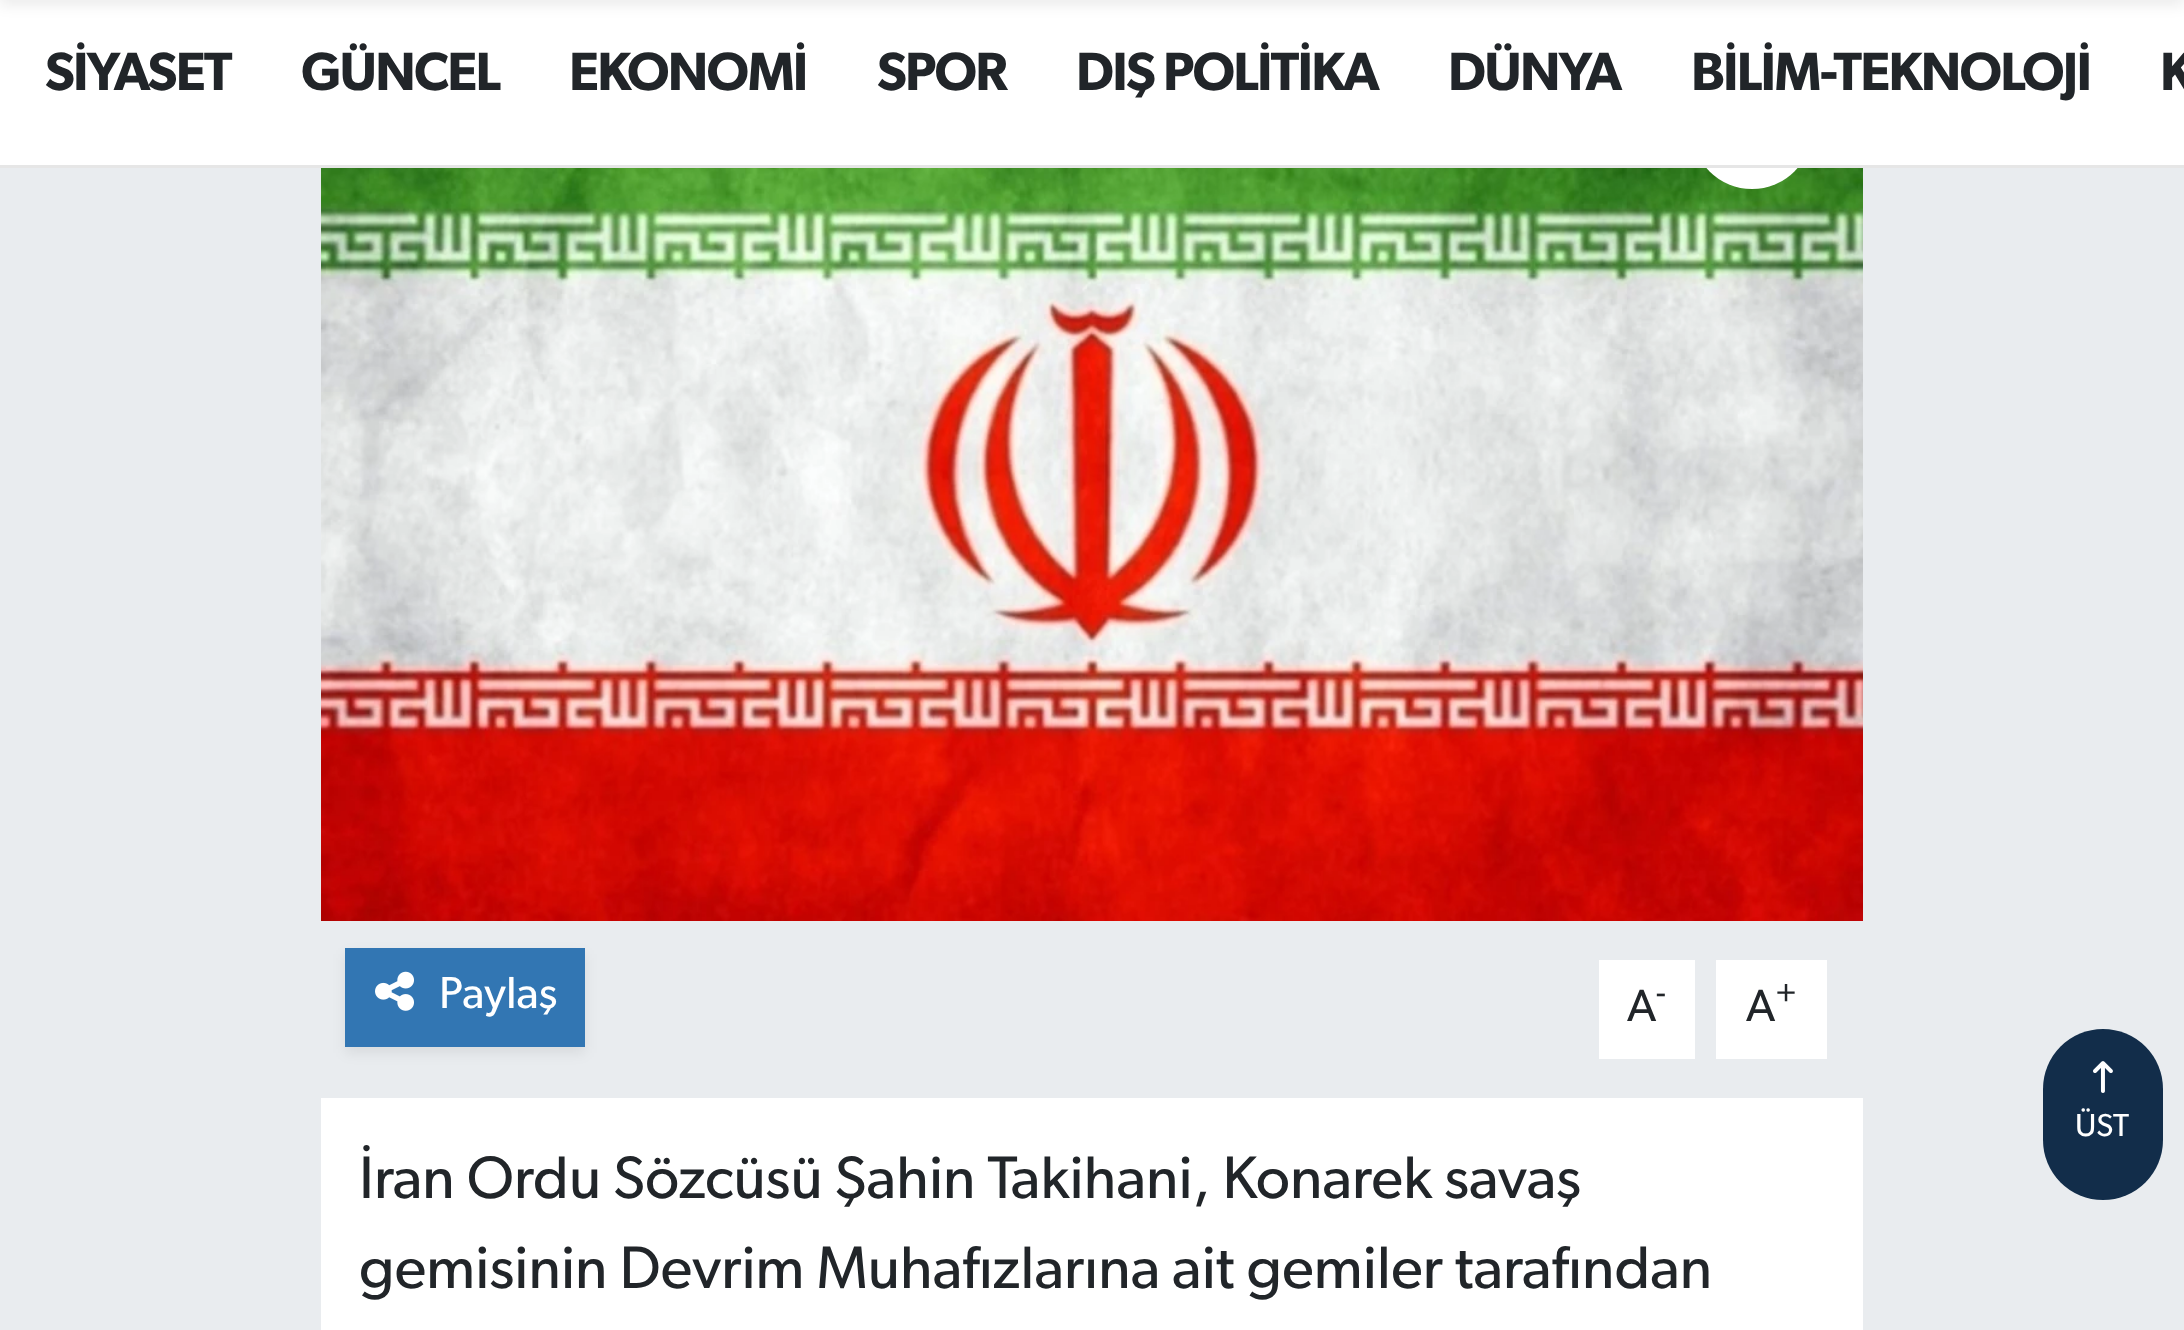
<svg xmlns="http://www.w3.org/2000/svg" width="2184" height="1330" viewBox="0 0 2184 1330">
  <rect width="100%" height="100%" fill="#e9ecef"/>
  <image x="321" y="168" width="1542" height="753" href="img/1.png"/>
  <circle cx="1752" cy="129" r="60" fill="#fff"/>
  <path d="M0 0h2184v165H0z" fill="#fff"/>
  <path d="M0 -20h2184v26H0z" fill="#00000012" filter="blur(6.5px)"/>
  <path d="M0 165h2184v3H0z" fill="#e6e6e6"/>
  <path d="M345 954h240v99H345z" fill="#00000012" filter="blur(6.5px)"/>
  <path d="M345 948h240v99H345z" fill="#3276b3"/>
  <image x="375" y="971" width="39" height="40" href="img/2.png"/>
  <path d="M1599 960h96v99H1599z" fill="#fff"/>
  <path d="M1716 960h111v99H1716z" fill="#fff"/>
  <path d="M321 1098h1542v232H321z" fill="#fff"/>
  <rect x="2043" y="1029" width="120" height="171" rx="60" fill="#122d4a"/>
  <image x="2093" y="1061" width="20" height="32" href="img/3.png"/>
  <g font-family="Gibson" font-size="54" font-weight="600" letter-spacing="-1.75" fill="#212529">
    <text x="45" y="90">SİYASET</text>
    <text x="301" y="90">GÜNCEL</text>
    <text x="569" y="90">EKONOMİ</text>
    <text x="877" y="90">SPOR</text>
    <text x="1076" y="90">DIŞ POLİTİKA</text>
    <text x="1448" y="90">DÜNYA</text>
    <text x="1691" y="90">BİLİM-TEKNOLOJİ</text>
    <text x="2160" y="90">K</text>
  </g>
  <text x="439" y="1008" font-family="Gibson" font-size="45" fill="#fff">Paylaş</text>
  <text x="1627" y="1021" font-family="Gibson" font-size="45" fill="#212529">A</text>
  <text x="1656" y="1004" font-family="Gibson" font-size="33" fill="#212529">-</text>
  <text x="1746" y="1021" font-family="Gibson" font-size="45" fill="#212529">A</text>
  <text x="1775" y="1004" font-family="Gibson" font-size="33" fill="#212529">+</text>
  <g font-family="Gibson" font-size="60" fill="#212529">
    <text x="359" y="1198">İran Ordu Sözcüsü Şahin Takihani, Konarek savaş</text>
    <text x="359" y="1288">gemisinin Devrim Muhafızlarına ait gemiler tarafından</text>
  </g>
  <text x="2075" y="1136" font-family="Gibson" font-size="32" fill="#fff">ÜST</text>
</svg>
